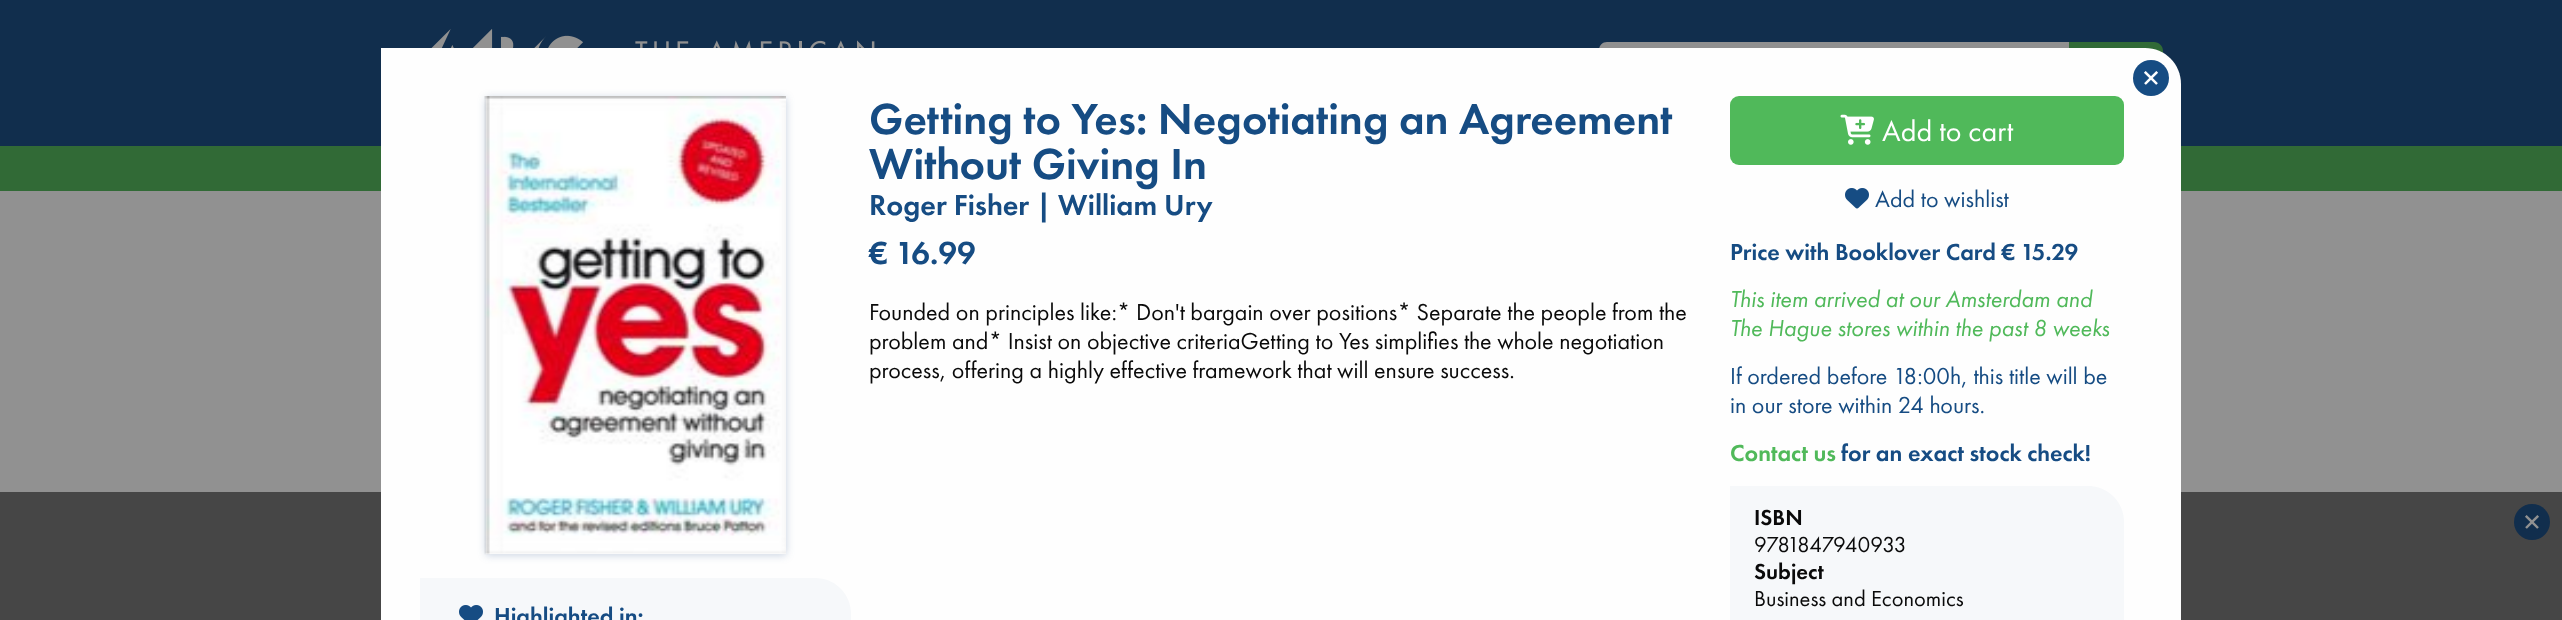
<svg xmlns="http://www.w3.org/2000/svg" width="2562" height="620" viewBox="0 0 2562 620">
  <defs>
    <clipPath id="clip1"><path d="M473 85H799V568H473ZM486 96H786V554H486Z" clip-rule="evenodd"/></clipPath>
  </defs>
  <rect width="100%" height="100%" fill="#919191"/>
  <path d="M0 0h2562v146H0z" fill="#112e4d"/>
  <image x="431" y="29" width="444" height="19" href="img/1.png"/>
  <path d="M1607 42H2069V96H1607C1602.5 96 1599 92.5 1599 88V50C1599 45.5 1602.5 42 1607 42Z" fill="#909090"/>
  <path d="M2069 42H2154C2159 42 2163 46 2163 51V87C2163 92 2159 96 2154 96H2069Z" fill="#316a36"/>
  <path d="M0 146h2562v45H0z" fill="#316a36"/>
  <path d="M0 492h2562v128H0z" fill="#0a0a0a8c"/>
  <path d="M381 48H2145C2165 48 2181 64 2181 84V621H381Z" fill="#fefefe"/>
  <circle cx="2151" cy="78" r="18" fill="#164c83"/>
  <rect x="1730" y="96" width="394" height="69" rx="9" fill="#50b95a"/>
  <image x="1840" y="114" width="34" height="31" href="img/2.png"/>
  <image x="1845" y="188" width="24" height="21" href="img/3.png"/>
  <path d="M1730 486H2088C2108 486 2124 502 2124 522V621H1730Z" fill="#f6f8fa"/>
  <g clip-path="url(#clip1)">
    <path d="M486 98h300v457H486z" fill="#16438340" filter="blur(4px)"/>
  </g>
  <image x="484" y="96" width="302" height="459" href="img/4.png"/>
  <path d="M420 578H815C835 578 851 594 851 614V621H420Z" fill="#f6f8fa"/>
  <image x="459" y="605" width="24" height="15" href="img/5.png"/>
  <circle cx="2532" cy="522" r="18" fill="#112e4d"/>
  <text x="2142" y="90" font-family="Futura PT" font-size="36" fill="#fff">×</text>
  <g font-family="Futura PT" font-size="45" font-weight="500" fill="#164c83">
    <text x="869" y="134">Getting to Yes: Negotiating an Agreement</text>
    <text x="869" y="179">Without Giving In</text>
  </g>
  <text x="869" y="215" font-family="Futura PT" font-size="30" font-weight="500" fill="#164c83">Roger Fisher | William Ury</text>
  <text x="869" y="264" font-family="Futura PT" font-size="33" font-weight="500" fill="#164c83">€ 16.99</text>
  <g font-family="Futura PT" font-size="24" fill="#0a0a0a">
    <text x="869" y="320">Founded on principles like:* Don't bargain over positions* Separate the people from the</text>
    <text x="869" y="349">problem and* Insist on objective criteriaGetting to Yes simplifies the whole negotiation</text>
    <text x="869" y="378">process, offering a highly effective framework that will ensure success.</text>
  </g>
  <text x="1882" y="141" font-family="Futura PT" font-size="30" fill="#fff">Add to cart</text>
  <text x="1875" y="207" font-family="Futura PT" font-size="24" fill="#164c83">Add to wishlist</text>
  <text x="1730" y="260" font-family="Futura PT" font-size="24" font-weight="500" fill="#164c83">Price with Booklover Card € 15.29</text>
  <g font-family="Futura PT" font-size="24" font-style="italic" fill="#50b95a">
    <text x="1730" y="307">This item arrived at our Amsterdam and</text>
    <text x="1730" y="336">The Hague stores within the past 8 weeks</text>
  </g>
  <g font-family="Futura PT" font-size="24" fill="#164c83">
    <text x="1730" y="384">If ordered before 18:00h, this title will be</text>
    <text x="1730" y="413">in our store within 24 hours.</text>
  </g>
  <text x="1730" y="461" font-family="Futura PT" font-size="24" font-weight="500" fill="#50b95a">Contact us</text>
  <text x="1841" y="461" font-family="Futura PT" font-size="24" font-weight="500" fill="#164c83">for an exact stock check!</text>
  <text x="1754" y="525" font-family="Futura PT" font-size="22.5" font-weight="500" fill="#0a0a0a">ISBN</text>
  <text x="1754" y="552" font-family="Futura PT" font-size="22.5" fill="#0a0a0a">9781847940933</text>
  <text x="1754" y="579" font-family="Futura PT" font-size="22.5" font-weight="500" fill="#0a0a0a">Subject</text>
  <text x="1754" y="606" font-family="Futura PT" font-size="22.5" fill="#0a0a0a">Business and Economics</text>
  <text x="494" y="624" font-family="Futura PT" font-size="24" font-weight="500" fill="#164c83">Highlighted in:</text>
  <text x="2523" y="534" font-family="Futura PT" font-size="36" fill="#919191">×</text>
</svg>
